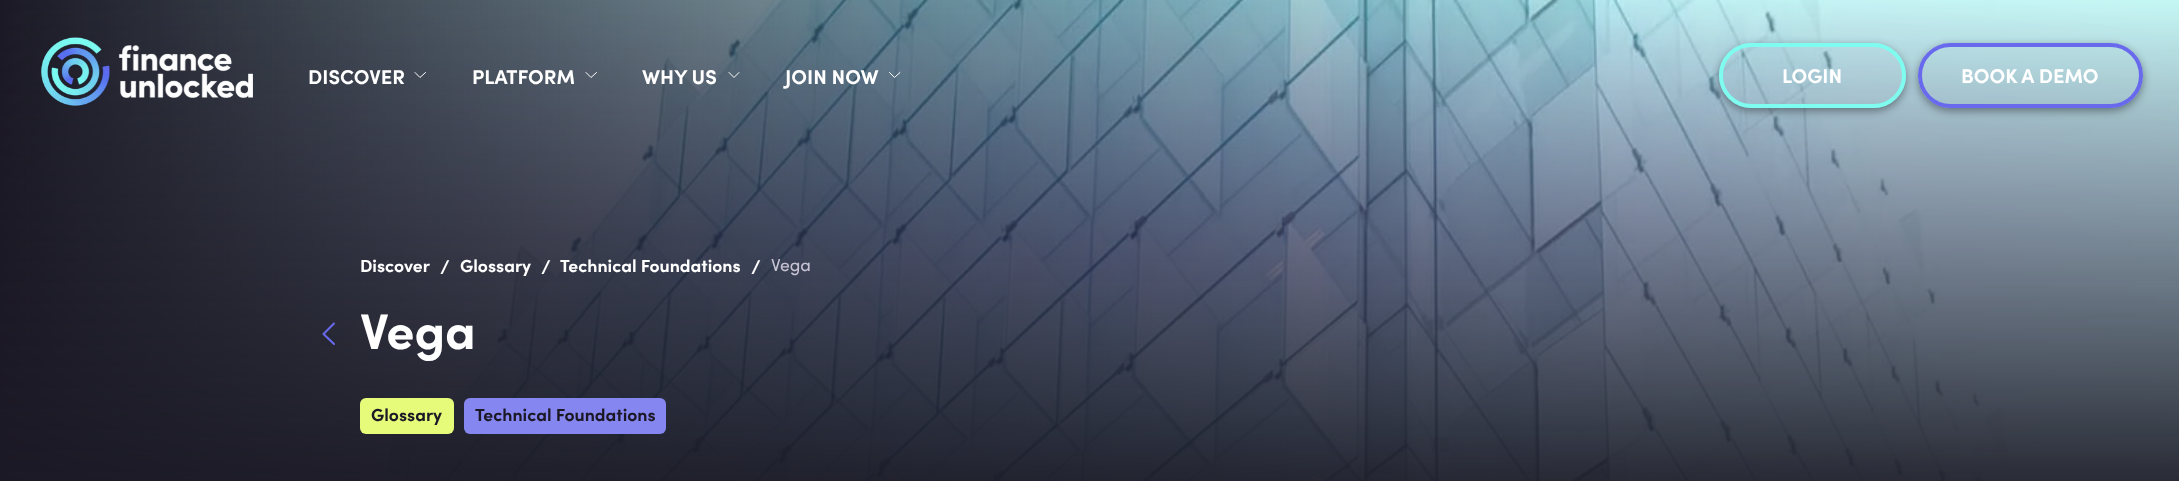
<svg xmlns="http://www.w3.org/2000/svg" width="2179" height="481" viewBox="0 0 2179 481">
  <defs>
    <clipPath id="clip1"><path d="M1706 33H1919V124H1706ZM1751.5 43H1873.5C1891.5 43 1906 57.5 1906 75.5C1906 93.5 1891.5 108 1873.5 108H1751.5C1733.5 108 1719 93.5 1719 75.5C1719 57.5 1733.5 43 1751.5 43Z" clip-rule="evenodd"/></clipPath>
    <clipPath id="clip2"><path d="M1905 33H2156V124H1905ZM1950.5 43H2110.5C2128.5 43 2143 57.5 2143 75.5C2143 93.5 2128.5 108 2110.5 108H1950.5C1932.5 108 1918 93.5 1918 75.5C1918 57.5 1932.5 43 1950.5 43Z" clip-rule="evenodd"/></clipPath>
  </defs>
  <rect width="100%" height="100%" fill="#fff"/>
  <image x="0" y="0" width="2179" height="481" href="img/2.png"/>
  <image x="41" y="37" width="212" height="69" href="img/1.png"/>
  <path d="M415 72.5L420 77.5L425.5 72.5" fill="none" stroke="#fff" stroke-linecap="round" stroke-linejoin="round"/>
  <path d="M586 72.5L591 77.5L596.5 72.5" fill="none" stroke="#fff" stroke-linecap="round" stroke-linejoin="round"/>
  <path d="M729 72.5L734 77.5L739 72.5" fill="none" stroke="#fff" stroke-linecap="round" stroke-linejoin="round"/>
  <path d="M889.5 72.5L894.5 77.5L900 72.5" fill="none" stroke="#fff" stroke-linecap="round" stroke-linejoin="round"/>
  <g clip-path="url(#clip1)">
    <rect x="1719" y="46" width="187" height="65" rx="32.5" fill="#00000066" filter="blur(4px)"/>
  </g>
  <rect x="1721" y="45" width="183" height="61" rx="30.5" fill="none" stroke="#7efcf0" stroke-width="4"/>
  <g clip-path="url(#clip2)">
    <rect x="1918" y="46" width="225" height="65" rx="32.5" fill="#00000066" filter="blur(4px)"/>
  </g>
  <rect x="1920" y="45" width="221" height="61" rx="30.5" fill="none" stroke="#6869ed" stroke-width="4"/>
  <path d="M334 323.5L323.5 334L334 344" fill="none" stroke="#6869ed" stroke-width="2.1" stroke-linecap="round" stroke-linejoin="round"/>
  <rect x="360" y="398" width="94" height="36" rx="6" fill="#e6fb7a"/>
  <rect x="464" y="398" width="202" height="36" rx="6" fill="#8686f1"/>
  <g font-family="Sofia" font-size="20" font-weight="bold" fill="#fff">
    <text x="308" y="84">DISCOVER</text>
    <text x="472" y="84">PLATFORM</text>
    <text x="642" y="84">WHY US</text>
    <text x="785" y="84">JOIN NOW</text>
    <text x="1782" y="83">LOGIN</text>
    <text x="1961" y="83">BOOK A DEMO</text>
  </g>
  <text x="360" y="272" font-family="Sofia" font-size="17.5" font-weight="bold" fill="#fff">Discover</text>
  <text x="440" y="274" font-family="Sofia" font-size="20" font-weight="bold" fill="#fff">/</text>
  <text x="460" y="272" font-family="Sofia" font-size="17.5" font-weight="bold" fill="#fff">Glossary</text>
  <text x="541" y="274" font-family="Sofia" font-size="20" font-weight="bold" fill="#fff">/</text>
  <text x="560" y="272" font-family="Sofia" font-size="17.5" font-weight="bold" fill="#fff">Technical Foundations</text>
  <text x="751" y="274" font-family="Sofia" font-size="20" font-weight="bold" fill="#fff">/</text>
  <text x="771" y="271" font-family="Sofia" font-size="17.5" fill="#c9c4d4">Vega</text>
  <text x="360" y="349" font-family="Sofia" font-size="50" font-weight="bold" fill="#fff">Vega</text>
  <g font-family="Sofia" font-size="17.5" font-weight="bold" fill="#1b1925">
    <text x="371" y="421">Glossary</text>
    <text x="475" y="421">Technical Foundations</text>
  </g>
</svg>
